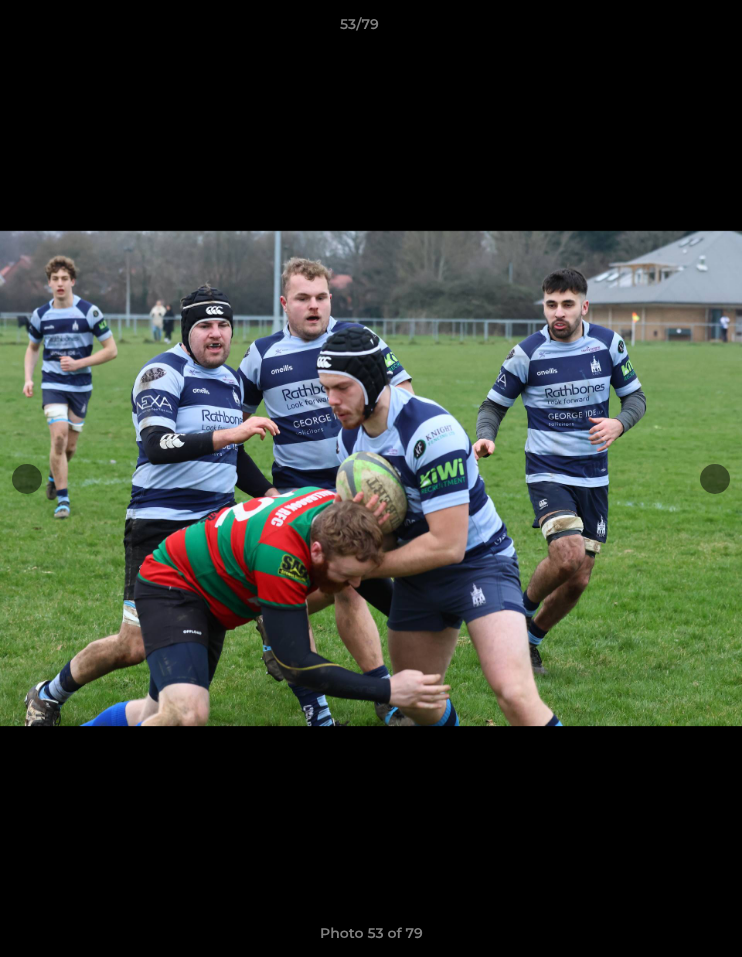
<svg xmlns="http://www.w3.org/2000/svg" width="742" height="957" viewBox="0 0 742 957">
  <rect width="100%" height="100%" fill="#000"/>
  <image x="0" y="230" width="742" height="497" href="img/1.png"/>
  <circle cx="27" cy="479" r="15" fill="#00000080"/>
  <circle cx="715" cy="479" r="15" fill="#00000080"/>
  <g font-family="Montserrat" font-size="14" font-weight="600" fill="#808080">
    <text x="340" y="29">53/79</text>
    <text x="320" y="938">Photo 53 of 79</text>
  </g>
</svg>
